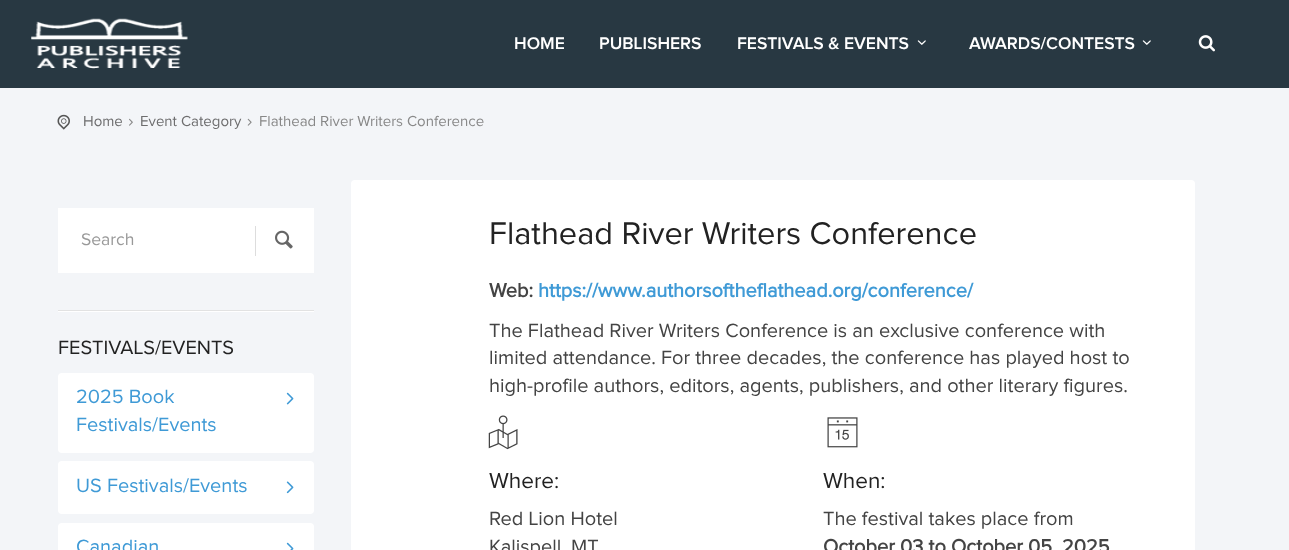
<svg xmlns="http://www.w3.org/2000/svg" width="1289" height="550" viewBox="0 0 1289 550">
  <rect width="100%" height="100%" fill="#f3f5f8"/>
  <path d="M0 0h1289v88H0z" fill="#283842"/>
  <image x="31" y="18" width="157" height="51" href="img/1.png"/>
  <image x="917" y="40" width="9" height="5" href="img/2.png"/>
  <image x="1142" y="40" width="9" height="5" href="img/2.png"/>
  <image x="1198" y="35" width="17" height="17" href="img/3.png"/>
  <image x="57" y="114" width="13" height="16" href="img/4.png"/>
  <image x="129" y="118" width="4" height="8" href="img/5.png"/>
  <image x="247" y="118" width="5" height="8" href="img/6.png"/>
  <path d="M58 208h256v65H58z" fill="#fff"/>
  <path d="M255 226h1v30H255z" fill="#ddd"/>
  <image x="275" y="230" width="18" height="19" href="img/7.png"/>
  <path d="M58 310h256v1H58z" fill="#e2e2e2"/>
  <path d="M58 311h256v1H58z" fill="#fff"/>
  <rect x="58" y="373" width="256" height="80" rx="4" fill="#fff"/>
  <image x="286" y="392" width="8" height="13" href="img/8.png"/>
  <rect x="58" y="461" width="256" height="53" rx="4" fill="#fff"/>
  <image x="286" y="481" width="8" height="13" href="img/9.png"/>
  <rect x="58" y="523" width="256" height="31" rx="4" fill="#fff"/>
  <image x="286" y="542" width="8" height="8" href="img/10.png"/>
  <rect x="351" y="180" width="844" height="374" rx="4" fill="#fff"/>
  <image x="488" y="415" width="30" height="35" href="img/11.png"/>
  <image x="827" y="417" width="31" height="31" href="img/12.png"/>
  <g font-family="Proxima Nova" font-size="17.5" font-weight="600" fill="#fff">
    <text x="514" y="49">HOME</text>
    <text x="599" y="49">PUBLISHERS</text>
    <text x="737" y="49">FESTIVALS &amp; EVENTS</text>
    <text x="969" y="49">AWARDS/CONTESTS</text>
  </g>
  <g font-family="Proxima Nova" font-size="15" fill="#6d6d6e">
    <text x="83" y="126">Home</text>
    <text x="140" y="126">Event Category</text>
  </g>
  <text x="259" y="126" font-family="Proxima Nova" font-size="15" fill="#888">Flathead River Writers Conference</text>
  <text x="81" y="245" font-family="Proxima Nova" font-size="17.5" fill="#999">Search</text>
  <text x="58" y="354" font-family="Proxima Nova" font-size="20" fill="#222">FESTIVALS/EVENTS</text>
  <g font-family="Proxima Nova" font-size="20" fill="#3f9ad6">
    <text x="76" y="403">2025 Book</text>
    <text x="76" y="431">Festivals/Events</text>
    <text x="76" y="492">US Festivals/Events</text>
    <text x="76" y="553">Canadian</text>
  </g>
  <text x="489" y="244" font-family="Proxima Nova" font-size="32.5" fill="#222">Flathead River Writers Conference</text>
  <text x="489" y="297" font-family="Proxima Nova" font-size="20" font-weight="bold" fill="#444">Web:</text>
  <text x="538" y="297" font-family="Proxima Nova" font-size="20" font-weight="bold" fill="#3f9ad6">https://www.authorsoftheflathead.org/conference/</text>
  <g font-family="Proxima Nova" font-size="20" fill="#444">
    <text x="489" y="337">The Flathead River Writers Conference is an exclusive conference with</text>
    <text x="489" y="364">limited attendance. For three decades, the conference has played host to</text>
    <text x="489" y="392">high-profile authors, editors, agents, publishers, and other literary figures.</text>
  </g>
  <text x="489" y="488" font-family="Proxima Nova" font-size="22.5" fill="#222">Where:</text>
  <g font-family="Proxima Nova" font-size="20" fill="#444">
    <text x="489" y="525">Red Lion Hotel</text>
    <text x="489" y="553">Kalispell</text>
    <text x="571" y="553">MT</text>
  </g>
  <text x="823" y="488" font-family="Proxima Nova" font-size="22.5" fill="#222">When:</text>
  <text x="823" y="525" font-family="Proxima Nova" font-size="20" fill="#444">The festival takes place from</text>
  <text x="823" y="553" font-family="Proxima Nova" font-size="20" font-weight="bold" fill="#444">October 03 to October 05, 2025</text>
</svg>
